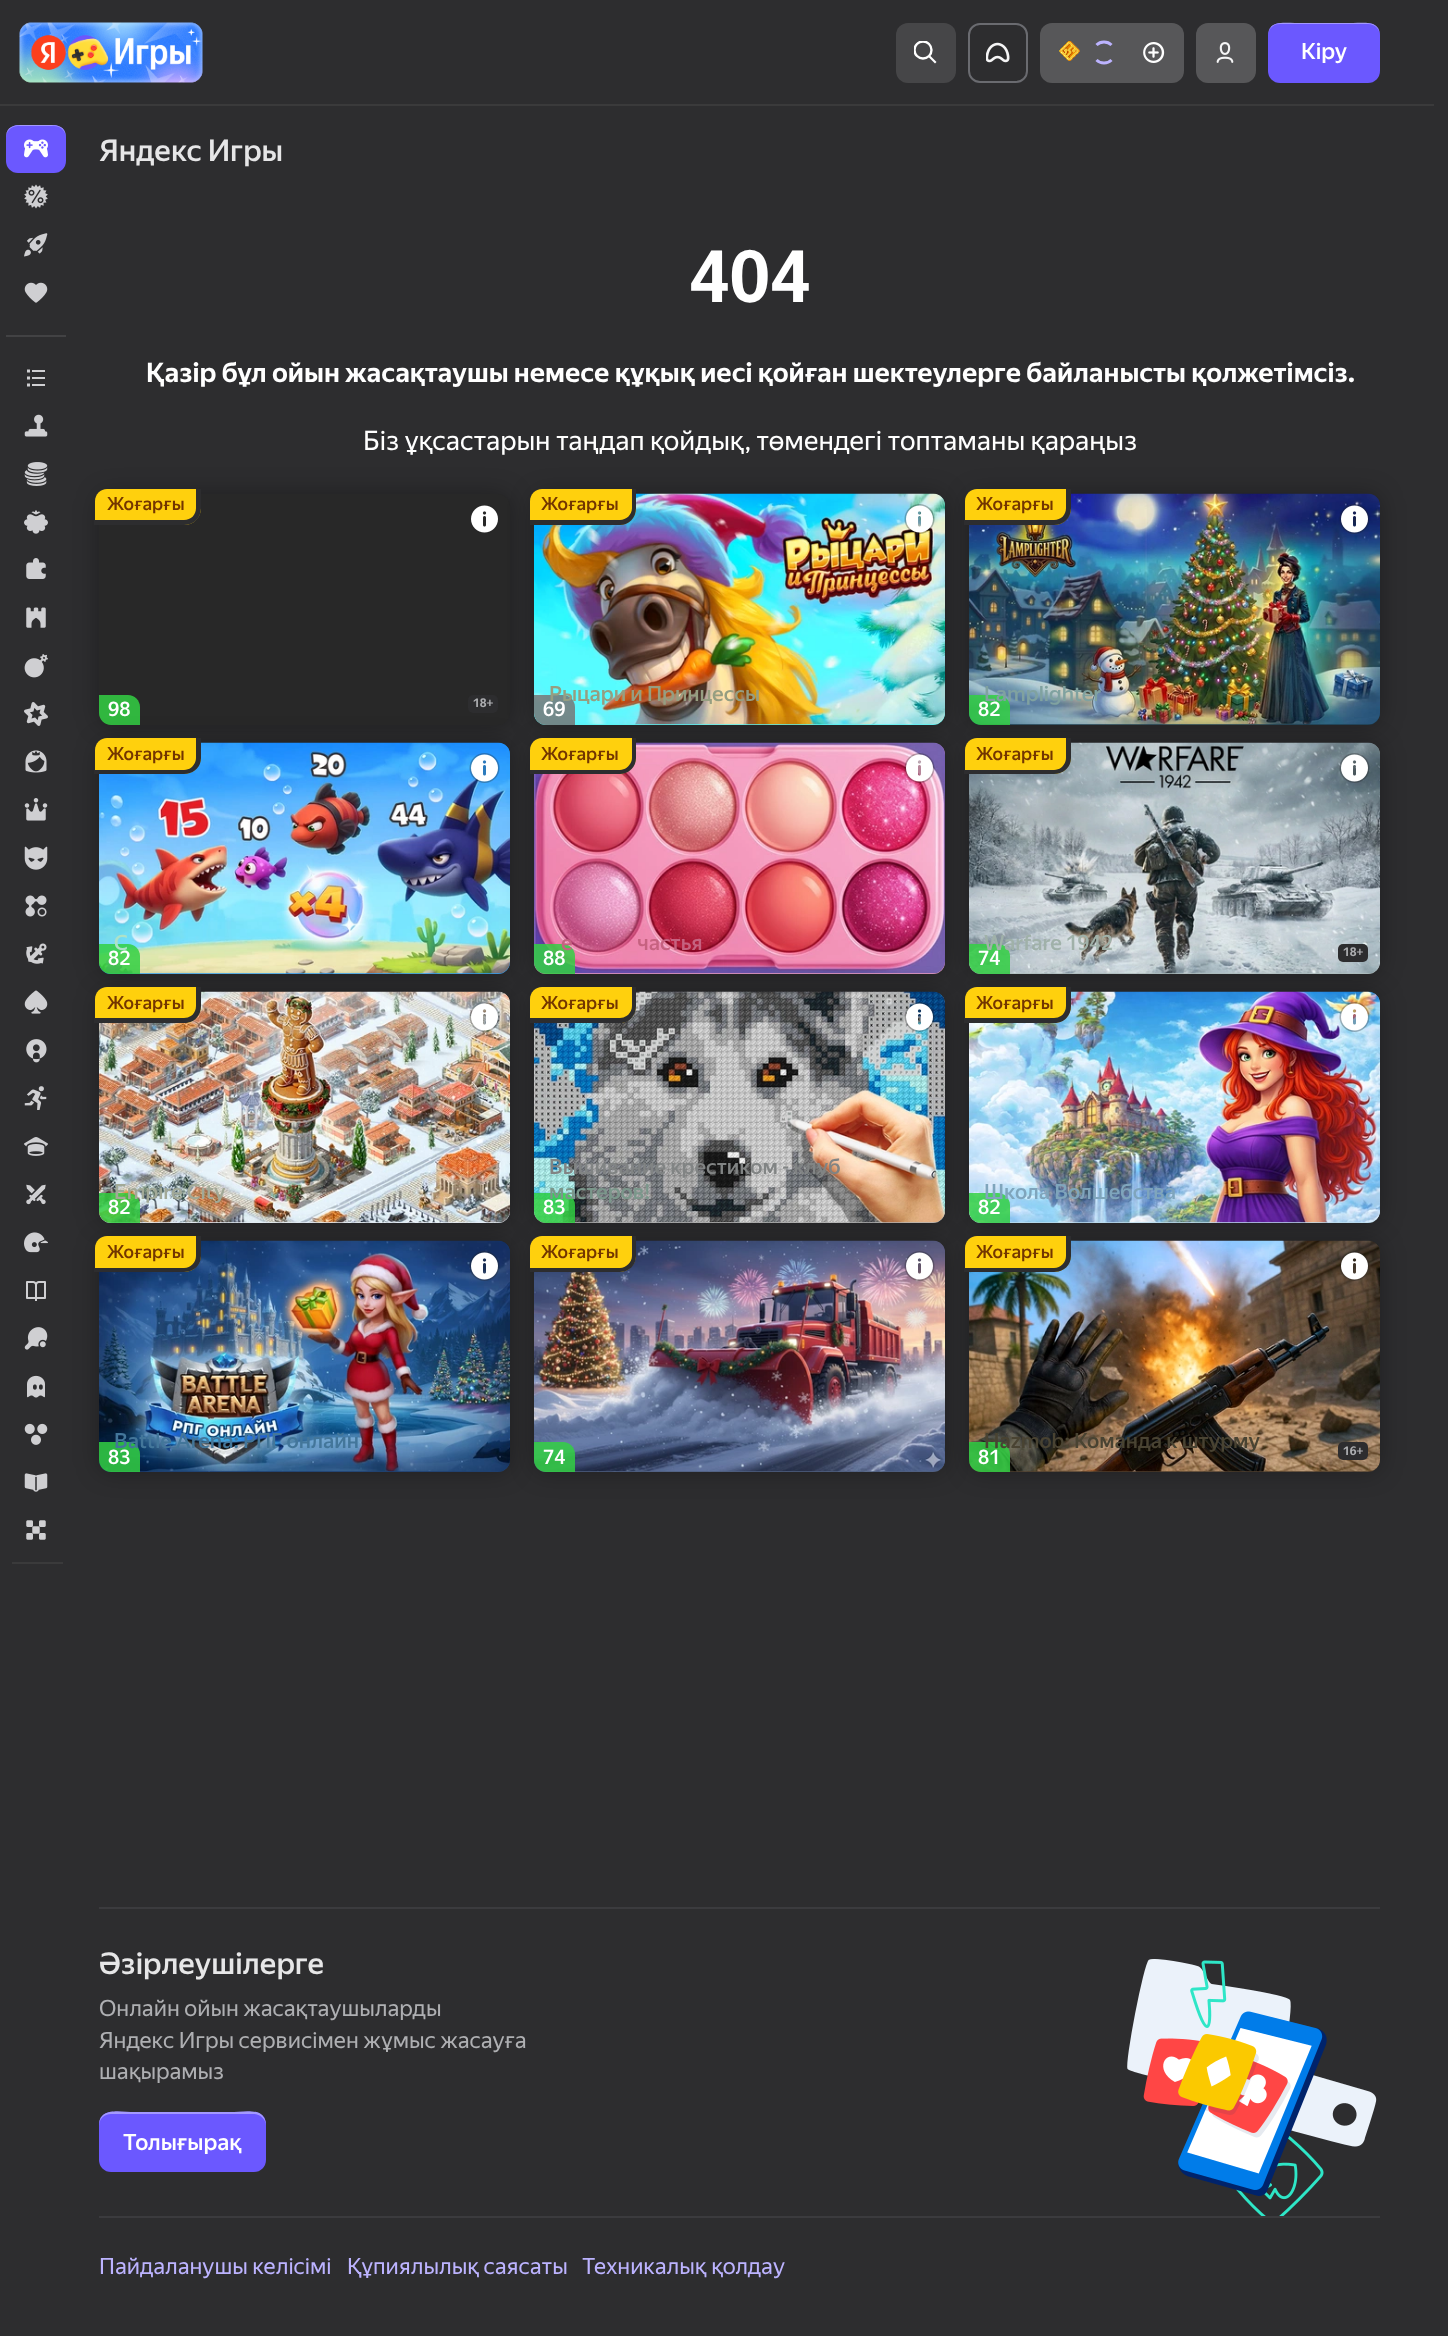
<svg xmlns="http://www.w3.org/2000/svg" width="1448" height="2336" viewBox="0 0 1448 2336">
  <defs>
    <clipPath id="clip1"><path d="M914 41h24v24H914z"/></clipPath>
  </defs>
  <rect width="100%" height="100%" fill="#2d2d2f"/>
  <path d="M0 104h1434v2H0z" fill="#3a3a3b"/>
  <image x="19" y="22" width="184" height="61" href="img/1.png"/>
  <rect x="896" y="23" width="60" height="60" rx="12" fill="#464648"/>
  <g clip-path="url(#clip1)">
    <circle cx="923" cy="50" r="8.5" fill="none" stroke="#fff" stroke-width="2.4"/>
  </g>
  <path d="M928 56.5L935 63.5L936.5 62L929.5 55Z" fill="#fff"/>
  <rect x="969" y="24" width="58" height="58" rx="11" fill="none" stroke="#6a6b70" stroke-width="2"/>
  <image x="986" y="42" width="24" height="21" href="img/2.png"/>
  <rect x="1040" y="23" width="144" height="60" rx="12" fill="#575759"/>
  <image x="1059" y="40" width="21" height="21" href="img/3.png"/>
  <path d="M1096.5 45C1100.5 41 1107.5 41 1111.5 45M1111.5 60C1107.5 64 1100.5 64 1096.5 60" fill="none" stroke="#bcb3ff" stroke-width="3"/>
  <image x="1143" y="42" width="22" height="21" href="img/4.png"/>
  <rect x="1196" y="23" width="60" height="60" rx="12" fill="#575759"/>
  <image x="1216" y="42" width="18" height="21" href="img/5.png"/>
  <rect x="1268" y="23" width="112" height="60" rx="12" fill="#6b58ff"/>
  <path d="M1280 24H1368C1375 24 1380 29 1380 36C1380 20 1364 23 1353 23H1295C1284 23 1268 20 1268 36C1268 29 1273 24 1280 24Z" fill="#a398ff"/>
  <rect x="6" y="125" width="60" height="48" rx="12" fill="#6b58ff"/>
  <path d="M18 126C11 126 6 131 6 138C6 126 14 125 24 125H48C58 125 66 126 66 138C66 131 61 126 54 126Z" fill="#a398ff"/>
  <image x="24" y="139" width="24" height="19" href="img/6.png"/>
  <image x="24" y="184" width="24" height="25" href="img/7.png"/>
  <image x="24" y="233" width="24" height="24" href="img/8.png"/>
  <image x="24" y="282" width="24" height="21" href="img/9.png"/>
  <path d="M6 335h60v2H6z" fill="#424244"/>
  <image x="27" y="369" width="18" height="18" href="img/10.png"/>
  <image x="24" y="414" width="24" height="23" href="img/11.png"/>
  <image x="24" y="462" width="24" height="24" href="img/12.png"/>
  <image x="24" y="510" width="24" height="24" href="img/13.png"/>
  <image x="26" y="558" width="20" height="21" href="img/14.png"/>
  <image x="26" y="607" width="20" height="21" href="img/15.png"/>
  <image x="24" y="654" width="24" height="24" href="img/16.png"/>
  <image x="24" y="702" width="24" height="24" href="img/17.png"/>
  <image x="25" y="750" width="22" height="23" href="img/18.png"/>
  <image x="24" y="798" width="24" height="23" href="img/19.png"/>
  <image x="24" y="846" width="24" height="24" href="img/20.png"/>
  <image x="25" y="895" width="22" height="22" href="img/21.png"/>
  <image x="26" y="943" width="21" height="21" href="img/22.png"/>
  <image x="24" y="990" width="24" height="24" href="img/23.png"/>
  <image x="26" y="1039" width="21" height="24" href="img/24.png"/>
  <image x="24" y="1086" width="23" height="24" href="img/25.png"/>
  <image x="24" y="1137" width="24" height="19" href="img/26.png"/>
  <image x="26" y="1184" width="20" height="21" href="img/27.png"/>
  <image x="24" y="1232" width="24" height="21" href="img/28.png"/>
  <image x="26" y="1281" width="20" height="20" href="img/29.png"/>
  <image x="24" y="1327" width="24" height="23" href="img/30.png"/>
  <image x="27" y="1375" width="18" height="23" href="img/31.png"/>
  <image x="24" y="1423" width="24" height="22" href="img/32.png"/>
  <image x="24" y="1473" width="24" height="19" href="img/33.png"/>
  <image x="26" y="1520" width="20" height="20" href="img/34.png"/>
  <path d="M12 1562h51v2H12z" fill="#3a3a3b"/>
  <rect x="99" y="494" width="411" height="231" rx="12" fill="#0000004d" filter="blur(12px)"/>
  <rect x="99" y="494" width="411" height="231" rx="12" fill="#282828"/>
  <path d="M107 489H201V508C201 517.5 193.5 525 184 525H95V501C95 494.5 100.5 489 107 489Z" fill="#ffd00d"/>
  <path d="M106 489H201V508C201 518 194 525 184 525H94V501C94 494 100 489 106 489ZM106 489H196V508C196 515 191 520 184 520H94V501C94 494 100 489 106 489Z" fill="#2d2d2f" fill-rule="evenodd"/>
  <path d="M99 695H128C134.5 695 140 700.5 140 707V725H111C104.5 725 99 719.5 99 713Z" fill="#31b73f"/>
  <rect x="468" y="695" width="30" height="18" rx="5" fill="#2d2d2f"/>
  <image x="471" y="505" width="27" height="28" href="img/35.png"/>
  <rect x="534" y="494" width="411" height="231" rx="12" fill="#0000004d" filter="blur(12px)"/>
  <rect x="534" y="494" width="411" height="231" rx="12" fill="#58f8f8"/>
  <image x="534" y="493" width="411" height="232" href="img/36.png"/>
  <path d="M542 489H636V508C636 517.5 628.5 525 619 525H530V501C530 494.5 535.5 489 542 489Z" fill="#ffd00d"/>
  <path d="M542 489H636V508C636 518 629 525 620 525H530V501C530 494 535 489 542 489ZM542 489H632V508C632 515 626 520 620 520H530V501C530 494 535 489 542 489Z" fill="#2d2d2f" fill-rule="evenodd"/>
  <path d="M534 695H563C569.5 695 575 700.5 575 707V725H546C539.5 725 534 719.5 534 713Z" fill="#777777d9"/>
  <image x="904" y="504" width="31" height="30" href="img/37.png"/>
  <rect x="969" y="494" width="411" height="231" rx="12" fill="#0000004d" filter="blur(12px)"/>
  <rect x="969" y="494" width="411" height="231" rx="12" fill="#204050"/>
  <image x="969" y="493" width="411" height="232" href="img/38.png"/>
  <path d="M977 489H1071V508C1071 517.5 1063.5 525 1054 525H965V501C965 494.5 970.5 489 977 489Z" fill="#ffd00d"/>
  <path d="M976 489H1071V508C1071 518 1064 525 1054 525H964V501C964 494 970 489 976 489ZM976 489H1066V508C1066 515 1061 520 1054 520H964V501C964 494 970 489 976 489Z" fill="#2d2d2f" fill-rule="evenodd"/>
  <path d="M969 695H998C1004.5 695 1010 700.5 1010 707V725H981C974.5 725 969 719.5 969 713Z" fill="#33d043d9"/>
  <image x="1339" y="504" width="31" height="30" href="img/39.png"/>
  <rect x="99" y="743" width="411" height="231" rx="12" fill="#0000004d" filter="blur(12px)"/>
  <rect x="99" y="743" width="411" height="231" rx="12" fill="#30a0f8"/>
  <image x="99" y="742" width="411" height="232" href="img/40.png"/>
  <path d="M107 738H201V757C201 766.5 193.5 774 184 774H95V750C95 743.5 100.5 738 107 738Z" fill="#ffd00d"/>
  <path d="M106 738H201V758C201 767 194 774 184 774H94V750C94 743 100 738 106 738ZM106 738H196V758C196 764 191 770 184 770H94V750C94 743 100 738 106 738Z" fill="#2d2d2f" fill-rule="evenodd"/>
  <path d="M99 944H128C134.5 944 140 949.5 140 956V974H111C104.5 974 99 968.5 99 962Z" fill="#33d043d9"/>
  <image x="469" y="753" width="31" height="30" href="img/41.png"/>
  <rect x="534" y="743" width="411" height="231" rx="12" fill="#0000004d" filter="blur(12px)"/>
  <rect x="534" y="743" width="411" height="231" rx="12" fill="#f0a0c0"/>
  <image x="534" y="742" width="411" height="232" href="img/42.png"/>
  <path d="M542 738H636V757C636 766.5 628.5 774 619 774H530V750C530 743.5 535.5 738 542 738Z" fill="#ffd00d"/>
  <path d="M542 738H636V758C636 767 629 774 620 774H530V750C530 743 535 738 542 738ZM542 738H632V758C632 764 626 770 620 770H530V750C530 743 535 738 542 738Z" fill="#2d2d2f" fill-rule="evenodd"/>
  <path d="M534 944H563C569.5 944 575 949.5 575 956V974H546C539.5 974 534 968.5 534 962Z" fill="#33d043d9"/>
  <image x="904" y="753" width="31" height="30" href="img/43.png"/>
  <rect x="969" y="743" width="411" height="231" rx="12" fill="#0000004d" filter="blur(12px)"/>
  <rect x="969" y="743" width="411" height="231" rx="12" fill="#b0c0c0"/>
  <image x="969" y="742" width="411" height="232" href="img/44.png"/>
  <path d="M977 738H1071V757C1071 766.5 1063.5 774 1054 774H965V750C965 743.5 970.5 738 977 738Z" fill="#ffd00d"/>
  <path d="M976 738H1071V758C1071 767 1064 774 1054 774H964V750C964 743 970 738 976 738ZM976 738H1066V758C1066 764 1061 770 1054 770H964V750C964 743 970 738 976 738Z" fill="#2d2d2f" fill-rule="evenodd"/>
  <path d="M969 944H998C1004.5 944 1010 949.5 1010 956V974H981C974.5 974 969 968.5 969 962Z" fill="#33d043d9"/>
  <rect x="1338" y="944" width="30" height="18" rx="5" fill="#2d2d2f"/>
  <image x="1339" y="753" width="31" height="30" href="img/45.png"/>
  <rect x="99" y="992" width="411" height="231" rx="12" fill="#0000004d" filter="blur(12px)"/>
  <rect x="99" y="992" width="411" height="231" rx="12" fill="#e8f0f8"/>
  <image x="99" y="991" width="411" height="232" href="img/46.png"/>
  <path d="M107 987H201V1006C201 1015.5 193.5 1023 184 1023H95V999C95 992.5 100.5 987 107 987Z" fill="#ffd00d"/>
  <path d="M106 987H201V1006C201 1016 194 1023 184 1023H94V999C94 992 100 987 106 987ZM106 987H196V1006C196 1013 191 1018 184 1018H94V999C94 992 100 987 106 987Z" fill="#2d2d2f" fill-rule="evenodd"/>
  <path d="M99 1193H128C134.5 1193 140 1198.5 140 1205V1223H111C104.5 1223 99 1217.5 99 1211Z" fill="#33d043d9"/>
  <image x="469" y="1002" width="31" height="30" href="img/47.png"/>
  <rect x="534" y="992" width="411" height="231" rx="12" fill="#0000004d" filter="blur(12px)"/>
  <rect x="534" y="992" width="411" height="231" rx="12" fill="#b8b8b8"/>
  <image x="534" y="991" width="411" height="232" href="img/48.png"/>
  <path d="M542 987H636V1006C636 1015.5 628.5 1023 619 1023H530V999C530 992.5 535.5 987 542 987Z" fill="#ffd00d"/>
  <path d="M542 987H636V1006C636 1016 629 1023 620 1023H530V999C530 992 535 987 542 987ZM542 987H632V1006C632 1013 626 1018 620 1018H530V999C530 992 535 987 542 987Z" fill="#2d2d2f" fill-rule="evenodd"/>
  <path d="M534 1193H563C569.5 1193 575 1198.5 575 1205V1223H546C539.5 1223 534 1217.5 534 1211Z" fill="#33d043d9"/>
  <image x="904" y="1002" width="31" height="30" href="img/49.png"/>
  <rect x="969" y="992" width="411" height="231" rx="12" fill="#0000004d" filter="blur(12px)"/>
  <rect x="969" y="992" width="411" height="231" rx="12" fill="#c0e0f0"/>
  <image x="969" y="991" width="411" height="232" href="img/50.png"/>
  <path d="M977 987H1071V1006C1071 1015.5 1063.5 1023 1054 1023H965V999C965 992.5 970.5 987 977 987Z" fill="#ffd00d"/>
  <path d="M976 987H1071V1006C1071 1016 1064 1023 1054 1023H964V999C964 992 970 987 976 987ZM976 987H1066V1006C1066 1013 1061 1018 1054 1018H964V999C964 992 970 987 976 987Z" fill="#2d2d2f" fill-rule="evenodd"/>
  <path d="M969 1193H998C1004.5 1193 1010 1198.5 1010 1205V1223H981C974.5 1223 969 1217.5 969 1211Z" fill="#33d043d9"/>
  <image x="1339" y="1002" width="31" height="30" href="img/51.png"/>
  <rect x="99" y="1241" width="411" height="231" rx="12" fill="#0000004d" filter="blur(12px)"/>
  <rect x="99" y="1241" width="411" height="231" rx="12" fill="#204070"/>
  <image x="99" y="1240" width="411" height="232" href="img/52.png"/>
  <path d="M107 1236H201V1255C201 1264.5 193.5 1272 184 1272H95V1248C95 1241.5 100.5 1236 107 1236Z" fill="#ffd00d"/>
  <path d="M106 1236H201V1256C201 1265 194 1272 184 1272H94V1248C94 1241 100 1236 106 1236ZM106 1236H196V1256C196 1262 191 1268 184 1268H94V1248C94 1241 100 1236 106 1236Z" fill="#2d2d2f" fill-rule="evenodd"/>
  <path d="M99 1442H128C134.5 1442 140 1447.5 140 1454V1472H111C104.5 1472 99 1466.5 99 1460Z" fill="#33d043d9"/>
  <image x="469" y="1251" width="31" height="30" href="img/53.png"/>
  <rect x="534" y="1241" width="411" height="231" rx="12" fill="#0000004d" filter="blur(12px)"/>
  <rect x="534" y="1241" width="411" height="231" rx="12" fill="#506080"/>
  <image x="534" y="1240" width="411" height="232" href="img/54.png"/>
  <path d="M542 1236H636V1255C636 1264.5 628.5 1272 619 1272H530V1248C530 1241.5 535.5 1236 542 1236Z" fill="#ffd00d"/>
  <path d="M542 1236H636V1256C636 1265 629 1272 620 1272H530V1248C530 1241 535 1236 542 1236ZM542 1236H632V1256C632 1262 626 1268 620 1268H530V1248C530 1241 535 1236 542 1236Z" fill="#2d2d2f" fill-rule="evenodd"/>
  <path d="M534 1442H563C569.5 1442 575 1447.5 575 1454V1472H546C539.5 1472 534 1466.5 534 1460Z" fill="#33d043d9"/>
  <image x="904" y="1251" width="31" height="30" href="img/55.png"/>
  <rect x="969" y="1241" width="411" height="231" rx="12" fill="#0000004d" filter="blur(12px)"/>
  <rect x="969" y="1241" width="411" height="231" rx="12" fill="#504030"/>
  <image x="969" y="1240" width="411" height="232" href="img/56.png"/>
  <path d="M977 1236H1071V1255C1071 1264.5 1063.5 1272 1054 1272H965V1248C965 1241.5 970.5 1236 977 1236Z" fill="#ffd00d"/>
  <path d="M976 1236H1071V1256C1071 1265 1064 1272 1054 1272H964V1248C964 1241 970 1236 976 1236ZM976 1236H1066V1256C1066 1262 1061 1268 1054 1268H964V1248C964 1241 970 1236 976 1236Z" fill="#2d2d2f" fill-rule="evenodd"/>
  <rect x="1338" y="1442" width="30" height="18" rx="5" fill="#2d2d2f"/>
  <path d="M969 1442H998C1004.5 1442 1010 1447.5 1010 1454V1472H981C974.5 1472 969 1466.5 969 1460Z" fill="#33d043d9"/>
  <image x="1340" y="1251" width="29" height="30" href="img/57.png"/>
  <path d="M99 1907h1281v2H99z" fill="#3b3b3e"/>
  <rect x="99" y="2112" width="167" height="60" rx="12" fill="#6b58ff"/>
  <path d="M111 2114H254C260 2114 266 2119 266 2126C266 2106 244 2112 230 2112H135C121 2112 99 2106 99 2126C99 2119 104 2114 111 2114Z" fill="#a398ff"/>
  <image x="1127" y="1959" width="250" height="257" href="img/58.png"/>
  <path d="M99 2216h1281v2H99z" fill="#3b3b3e"/>
  <text x="1301" y="59" font-family="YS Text" font-size="22.5" font-weight="500" fill="#fff">Кіру</text>
  <text x="99" y="161" font-family="YS Text" font-size="30" font-weight="500" fill="#e6e6e7">Яндекс Игры</text>
  <text x="689" y="302" font-family="YS Text" font-size="72" font-weight="bold" fill="#fff">404</text>
  <text x="146" y="382" font-family="YS Text" font-size="27" font-weight="bold" fill="#fff">Қазір бұл ойын жасақтаушы немесе құқық иесі қойған шектеулерге байланысты қолжетімсіз.</text>
  <text x="363" y="450" font-family="YS Text" font-size="27" fill="#fff">Біз ұқсастарын таңдап қойдық, төмендегі топтаманы қараңыз</text>
  <text x="107" y="510" font-family="YS Text" font-size="18" font-weight="500" fill="#733600">Жоғарғы</text>
  <text x="108" y="716" font-family="YS Text" font-size="20" font-weight="500" fill="#fff">98</text>
  <text x="473" y="707" font-family="YS Text" font-size="12" font-weight="bold" fill="#aeafb2">18+</text>
  <text x="541" y="510" font-family="YS Text" font-size="18" font-weight="500" fill="#733600">Жоғарғы</text>
  <text x="549" y="701" font-family="YS Text" font-size="21" font-weight="500" fill="#969e81">Рыцари и Принцессы</text>
  <text x="543" y="716" font-family="YS Text" font-size="20" font-weight="500" fill="#fff">69</text>
  <text x="976" y="510" font-family="YS Text" font-size="18" font-weight="500" fill="#733600">Жоғарғы</text>
  <text x="984" y="701" font-family="YS Text" font-size="21" font-weight="500" fill="#80a2a0">Lamplighter</text>
  <text x="978" y="716" font-family="YS Text" font-size="20" font-weight="500" fill="#fff">82</text>
  <text x="107" y="760" font-family="YS Text" font-size="18" font-weight="500" fill="#733600">Жоғарғы</text>
  <text x="114" y="950" font-family="YS Text" font-size="21" font-weight="500" fill="#aee2c7">С</text>
  <text x="108" y="965" font-family="YS Text" font-size="20" font-weight="500" fill="#fff">82</text>
  <text x="541" y="760" font-family="YS Text" font-size="18" font-weight="500" fill="#733600">Жоғарғы</text>
  <g font-family="YS Text" font-size="21" font-weight="500" fill="#c66280">
    <text x="561" y="950">е</text>
    <text x="637" y="950">частья</text>
  </g>
  <text x="543" y="965" font-family="YS Text" font-size="20" font-weight="500" fill="#fff">88</text>
  <text x="976" y="760" font-family="YS Text" font-size="18" font-weight="500" fill="#733600">Жоғарғы</text>
  <text x="984" y="950" font-family="YS Text" font-size="21" font-weight="500" fill="#a0b1a9">Warfare 1942</text>
  <text x="978" y="965" font-family="YS Text" font-size="20" font-weight="500" fill="#fff">74</text>
  <text x="1343" y="956" font-family="YS Text" font-size="12" font-weight="bold" fill="#aeafb2">18+</text>
  <text x="107" y="1009" font-family="YS Text" font-size="18" font-weight="500" fill="#733600">Жоғарғы</text>
  <text x="114" y="1199" font-family="YS Text" font-size="21" font-weight="500" fill="#a2a997">Empire City</text>
  <text x="108" y="1214" font-family="YS Text" font-size="20" font-weight="500" fill="#fff">82</text>
  <text x="541" y="1009" font-family="YS Text" font-size="18" font-weight="500" fill="#733600">Жоғарғы</text>
  <text x="549" y="1174" font-family="YS Text" font-size="21" font-weight="500" fill="#818484">Вышивание крестиком - клуб</text>
  <text x="549" y="1199" font-family="YS Text" font-size="21" font-weight="500" fill="#7b978b">мастеров!</text>
  <text x="543" y="1214" font-family="YS Text" font-size="20" font-weight="500" fill="#fff">83</text>
  <text x="976" y="1009" font-family="YS Text" font-size="18" font-weight="500" fill="#733600">Жоғарғы</text>
  <text x="984" y="1199" font-family="YS Text" font-size="21" font-weight="500" fill="#7fa5bc">Школа Волшебства</text>
  <text x="978" y="1214" font-family="YS Text" font-size="20" font-weight="500" fill="#fff">82</text>
  <text x="107" y="1258" font-family="YS Text" font-size="18" font-weight="500" fill="#733600">Жоғарғы</text>
  <text x="114" y="1448" font-family="YS Text" font-size="21" font-weight="500" fill="#43769a">Battle Arena: РПГ онлайн</text>
  <text x="108" y="1464" font-family="YS Text" font-size="20" font-weight="500" fill="#fff">83</text>
  <text x="541" y="1258" font-family="YS Text" font-size="18" font-weight="500" fill="#733600">Жоғарғы</text>
  <text x="543" y="1464" font-family="YS Text" font-size="20" font-weight="500" fill="#fff">74</text>
  <text x="976" y="1258" font-family="YS Text" font-size="18" font-weight="500" fill="#733600">Жоғарғы</text>
  <text x="984" y="1448" font-family="YS Text" font-size="21" font-weight="500" fill="#494332">Hazmob: Команда к штурму</text>
  <text x="1343" y="1455" font-family="YS Text" font-size="12" font-weight="bold" fill="#aeafb2">16+</text>
  <text x="978" y="1464" font-family="YS Text" font-size="20" font-weight="500" fill="#fff">81</text>
  <text x="99" y="1974" font-family="YS Text" font-size="30" font-weight="500" fill="#e6e6e7">Әзірлеушілерге</text>
  <g font-family="YS Text" font-size="22.5" fill="#aeafb2">
    <text x="99" y="2016">Онлайн ойын жасақтаушыларды</text>
    <text x="99" y="2048">Яндекс Игры сервисімен жұмыс жасауға</text>
    <text x="99" y="2079">шақырамыз</text>
  </g>
  <text x="123" y="2150" font-family="YS Text" font-size="22.5" font-weight="500" fill="#fff">Толығырақ</text>
  <g font-family="YS Text" font-size="22.5" fill="#bcb3ff">
    <text x="99" y="2274">Пайдаланушы келісімі</text>
    <text x="347" y="2274">Құпиялылық саясаты</text>
    <text x="582" y="2274">Техникалық қолдау</text>
  </g>
</svg>
